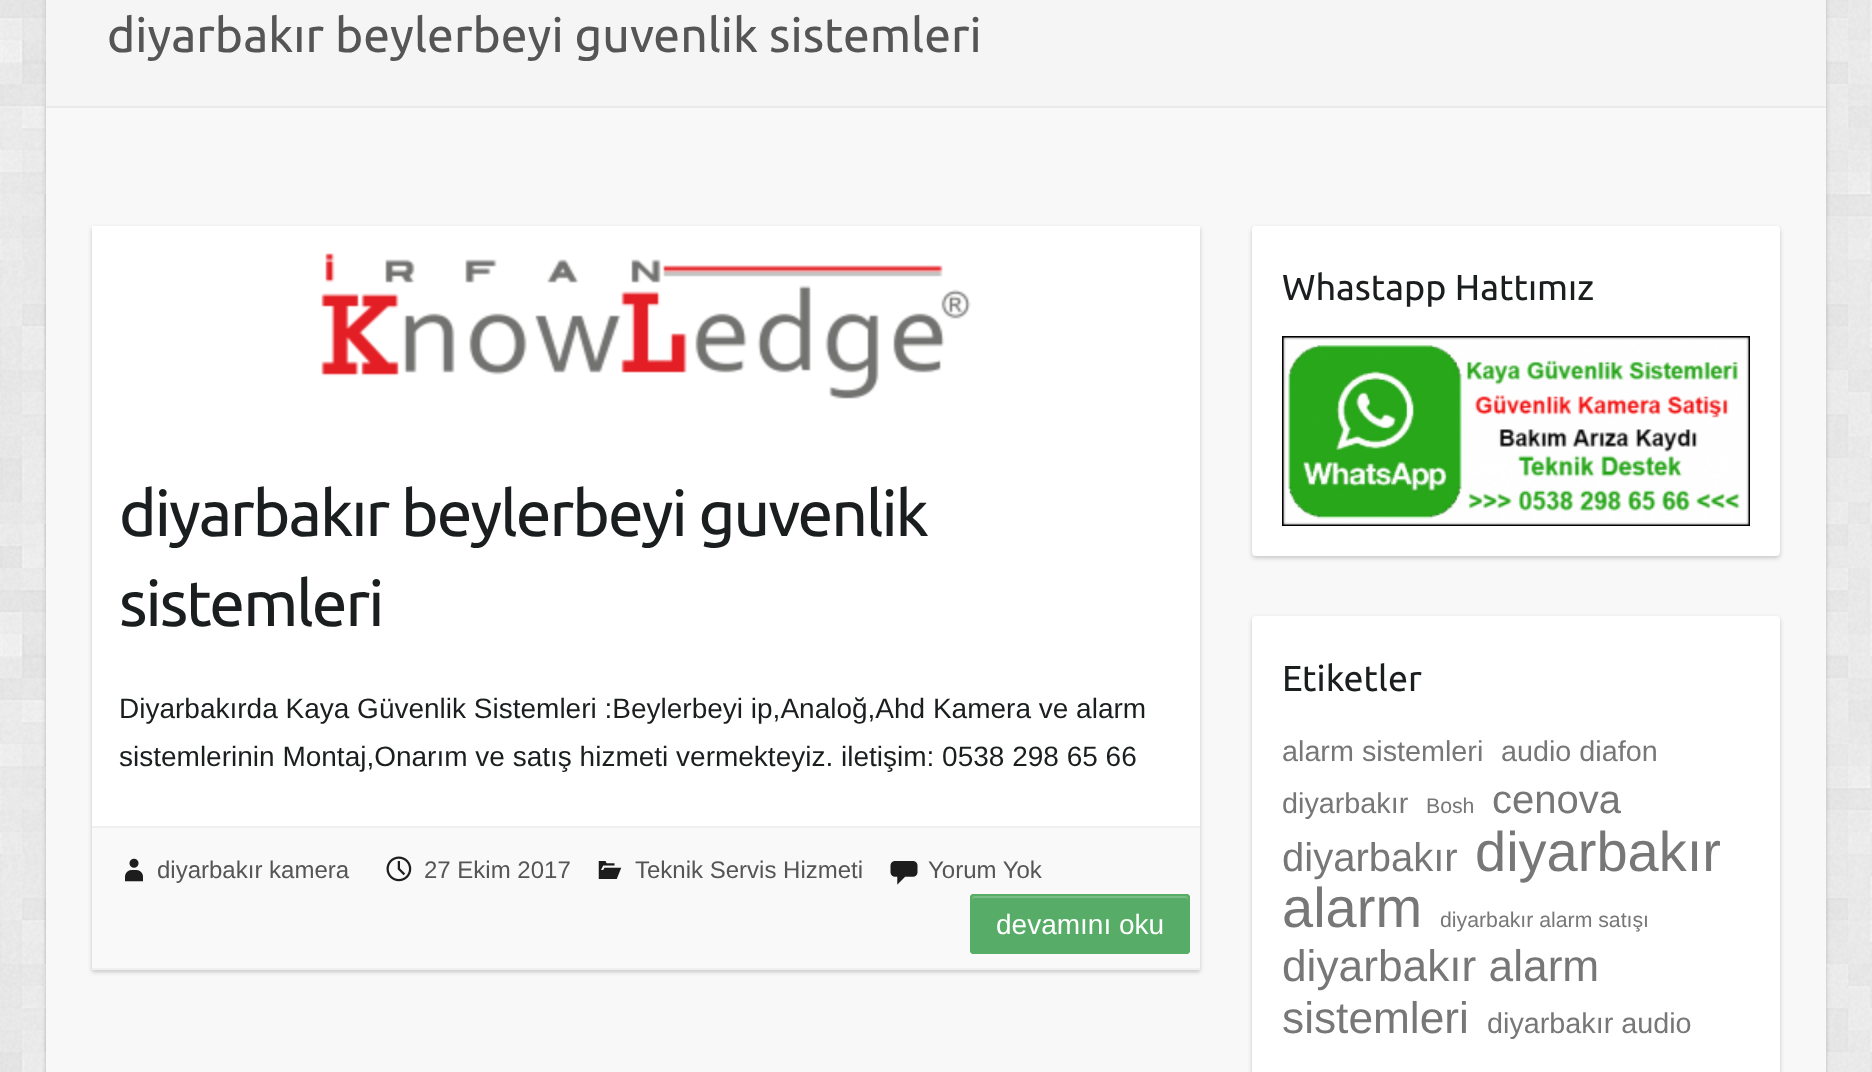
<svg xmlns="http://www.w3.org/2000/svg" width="1872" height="1072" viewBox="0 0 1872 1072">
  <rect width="100%" height="100%" fill="#fff"/>
  <image x="0" y="0" width="1872" height="1072" href="img/1.png"/>
  <rect x="46" y="-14" width="1780" height="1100" rx="8" fill="#00000033" filter="blur(2px)"/>
  <path d="M46 108h1780v964H46z" fill="#f8f8f8"/>
  <path d="M46 0h1780v106H46z" fill="#f5f5f5"/>
  <path d="M46 106h1780v2H46z" fill="#eaeaea"/>
  <path d="M92 228h1108v744H92z" fill="#00000033" filter="blur(2px)"/>
  <path d="M92 226h1108v600H92z" fill="#fff"/>
  <image x="321" y="253" width="650" height="146" href="img/2.png"/>
  <path d="M92 828h1108v140H92z" fill="#f9f9f9"/>
  <path d="M92 826h1108v2H92z" fill="#f0f0f0"/>
  <path d="M92 968h1108v2H92z" fill="#f0f0f0"/>
  <image x="125" y="858" width="18" height="24" href="img/3.png"/>
  <image x="386" y="856" width="26" height="26" href="img/4.png"/>
  <image x="598" y="861" width="24" height="18" href="img/5.png"/>
  <image x="890" y="861" width="28" height="24" href="img/6.png"/>
  <rect x="970" y="894" width="220" height="60" rx="4" fill="#57ad68"/>
  <path d="M974 898H1186C1187 898 1188 899 1188 900V898C1188 897 1187 896 1186 896H974C973 896 972 897 972 898V900C972 899 973 898 974 898Z" fill="#79bd86"/>
  <rect x="971" y="895" width="218" height="58" rx="3" fill="none" stroke="#57ad68" stroke-width="2"/>
  <rect x="1252" y="228" width="528" height="330" rx="4" fill="#00000033" filter="blur(2px)"/>
  <rect x="1252" y="226" width="528" height="330" rx="4" fill="#fff"/>
  <image x="1282" y="336" width="468" height="190" href="img/7.png"/>
  <rect x="1252" y="618" width="528" height="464" rx="4" fill="#00000033" filter="blur(2px)"/>
  <rect x="1252" y="616" width="528" height="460" rx="4" fill="#fff"/>
  <text x="107" y="52" font-family="Ubuntu" font-size="48" fill="#555">diyarbakır beylerbeyi guvenlik sistemleri</text>
  <g font-family="Ubuntu" font-size="64" letter-spacing="-2" fill="#1b1e1f">
    <text x="119" y="536">diyarbakır beylerbeyi guvenlik</text>
    <text x="119" y="626">sistemleri</text>
  </g>
  <g font-family="Liberation Sans" font-size="28" fill="#1b1e1f">
    <text x="119" y="718">Diyarbakırda Kaya Güvenlik Sistemleri :Beylerbeyi ip,Analoğ,Ahd Kamera ve alarm</text>
    <text x="119" y="766">sistemlerinin Montaj,Onarım ve satış hizmeti vermekteyiz. iletişim: 0538 298 65 66</text>
  </g>
  <g font-family="Liberation Sans" font-size="24" fill="#555">
    <text x="157" y="878">diyarbakır kamera</text>
    <text x="424" y="878">27 Ekim 2017</text>
    <text x="635" y="878">Teknik Servis Hizmeti</text>
    <text x="928" y="878">Yorum Yok</text>
  </g>
  <text x="996" y="934" font-family="Liberation Sans" font-size="28" fill="#fff">devamını oku</text>
  <g font-family="Ubuntu" font-size="36" fill="#1b1e1f">
    <text x="1282" y="300">Whastapp Hattımız</text>
    <text x="1282" y="691">Etiketler</text>
  </g>
  <g font-family="Liberation Sans" font-size="28.75" fill="#777">
    <text x="1282" y="761">alarm sistemleri</text>
    <text x="1501" y="761">audio diafon</text>
    <text x="1282" y="813">diyarbakır</text>
  </g>
  <text x="1426" y="813" font-family="Liberation Sans" font-size="21.25" fill="#777">Bosh</text>
  <g font-family="Liberation Sans" font-size="40" fill="#777">
    <text x="1492" y="813">cenova</text>
    <text x="1282" y="871">diyarbakır</text>
  </g>
  <g font-family="Liberation Sans" font-size="56" fill="#777">
    <text x="1475" y="871">diyarbakır</text>
    <text x="1282" y="927">alarm</text>
  </g>
  <text x="1440" y="927" font-family="Liberation Sans" font-size="21.25" fill="#777">diyarbakır alarm satışı</text>
  <g font-family="Liberation Sans" font-size="44.25" fill="#777">
    <text x="1282" y="981">diyarbakır alarm</text>
    <text x="1282" y="1033">sistemleri</text>
  </g>
  <text x="1487" y="1033" font-family="Liberation Sans" font-size="28.75" fill="#777">diyarbakır audio</text>
</svg>
